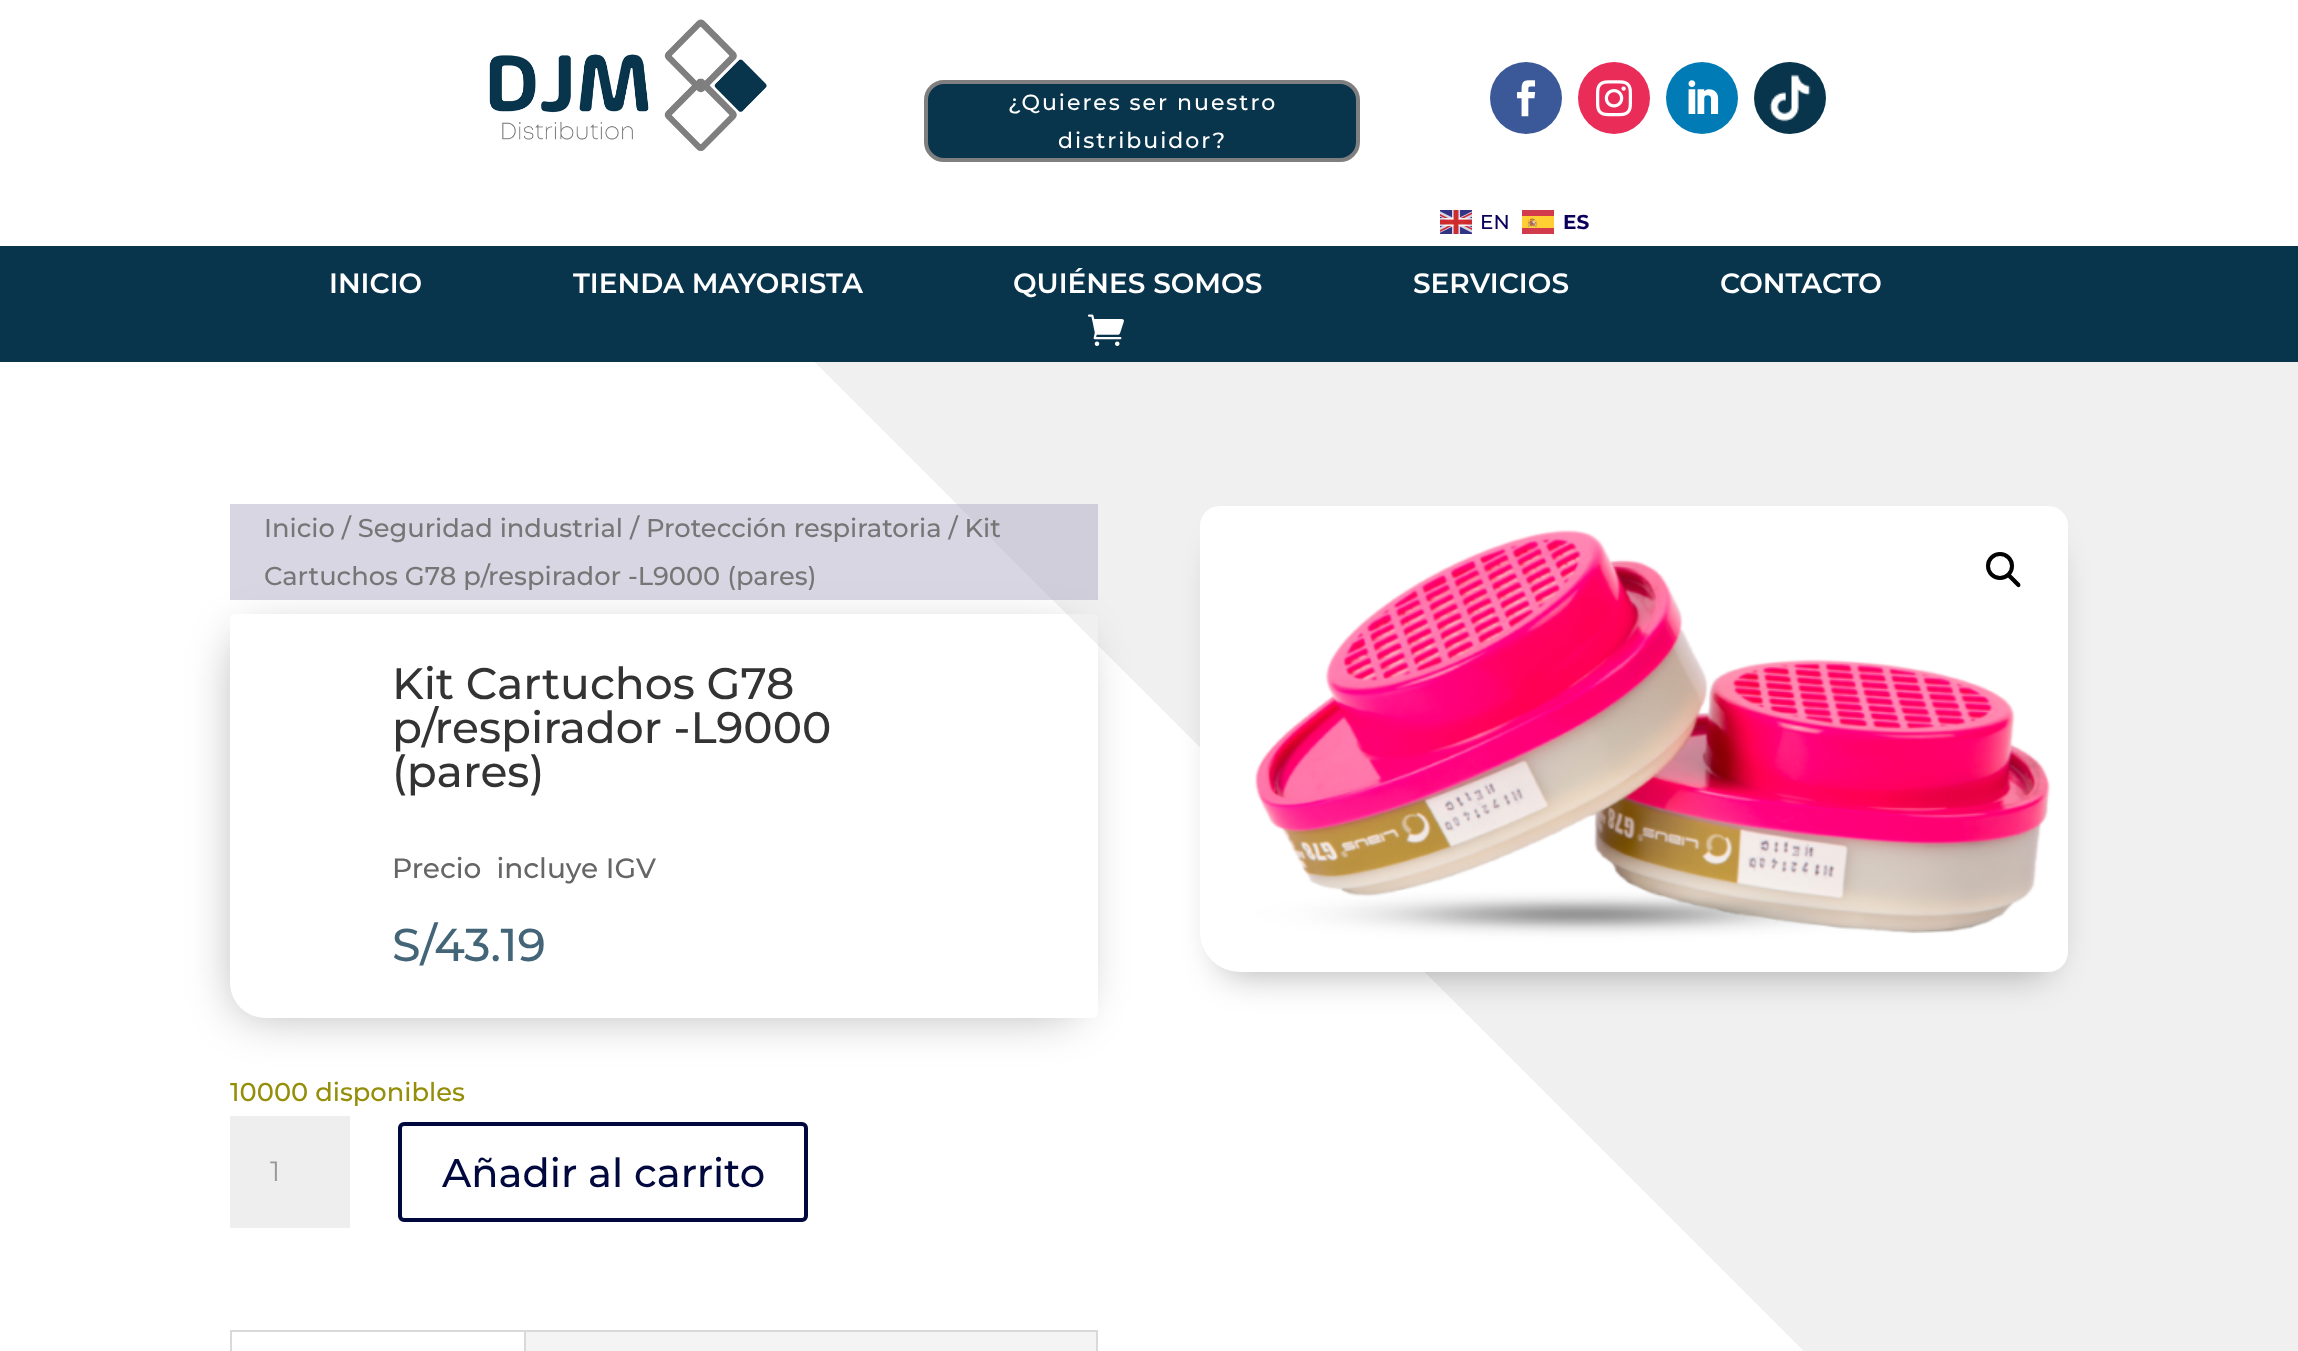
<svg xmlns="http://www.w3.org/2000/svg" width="2298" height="1351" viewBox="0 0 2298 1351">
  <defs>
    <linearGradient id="g1" gradientUnits="userSpaceOnUse" x1="89" y1="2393" x2="2209" y2="273"><stop offset="0.65" stop-color="#fff"/><stop offset="0.65" stop-color="#f0f0f1"/></linearGradient>
    <clipPath id="clip1"><path d="M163 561H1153V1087H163ZM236 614H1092C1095.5 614 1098 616.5 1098 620V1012C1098 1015.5 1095.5 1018 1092 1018H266C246 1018 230 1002 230 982V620C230 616.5 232.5 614 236 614Z" clip-rule="evenodd"/></clipPath>
  </defs>
  <rect width="100%" height="100%" fill="#fff"/>
  <image x="489" y="19" width="278" height="132" href="img/1.png"/>
  <rect x="926" y="82" width="432" height="78" rx="18" fill="#08344c" stroke="#7f7f80" stroke-width="4"/>
  <circle cx="1526" cy="98" r="36" fill="#3b5998"/>
  <image x="1517" y="80" width="19" height="37" href="img/2.png"/>
  <circle cx="1614" cy="98" r="36" fill="#ea2c59"/>
  <image x="1596" y="80" width="36" height="37" href="img/3.png"/>
  <circle cx="1702" cy="98" r="36" fill="#007bb6"/>
  <image x="1688" y="80" width="31" height="34" href="img/4.png"/>
  <image x="1754" y="62" width="72" height="72" href="img/5.png"/>
  <image x="1440" y="210" width="32" height="24" href="img/6.png"/>
  <image x="1522" y="210" width="32" height="24" href="img/7.png"/>
  <path d="M0 246h2298v116H0z" fill="#08344c"/>
  <image x="1087" y="314" width="37" height="32" href="img/8.png"/>
  <path d="M815 362h1483v989H815z" fill="url(#g1)"/>
  <g clip-path="url(#clip1)">
    <rect x="236" y="634" width="844" height="380" rx="24" fill="#0000004d" filter="blur(24px)"/>
  </g>
  <path d="M230 504h868v96H230z" fill="#aba3c273"/>
  <path d="M230 1116h120v112H230z" fill="#eee"/>
  <rect x="400" y="1124" width="406" height="96" rx="4" fill="none" stroke="#01083d" stroke-width="4"/>
  <path d="M231 1331h866v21H231z" fill="none" stroke="#d9d9d9" stroke-width="2"/>
  <path d="M526 1332h570v19H526z" fill="#f4f4f4"/>
  <path d="M524 1332h2v19H524z" fill="#d9d9d9"/>
  <rect x="1220" y="544" width="832" height="430" rx="22" fill="#0000004d" filter="blur(18px)"/>
  <image x="1200" y="506" width="868" height="466" href="img/9.png"/>
  <circle cx="2000" cy="566" r="12" fill="none" stroke="#000" stroke-width="4"/>
  <path d="M2008.5 575C2009.5 574.5 2010.5 574.5 2011.5 575L2020 583.5C2020.5 584.5 2020.5 586 2020 586.5C2019 587.5 2018 587.5 2017 586.5L2008.5 578C2007.5 577.5 2007.5 576 2008.5 575Z" fill="#000"/>
  <g font-family="Montserrat" font-size="22" font-weight="100" letter-spacing="2" fill="#fff">
    <text x="1008" y="110">¿Quieres ser nuestro</text>
    <text x="1058" y="148">distribuidor?</text>
  </g>
  <text x="1480" y="229" font-family="Montserrat" font-size="20" font-weight="100" fill="#0a005b">EN</text>
  <text x="1563" y="229" font-family="'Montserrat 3'" font-size="20" font-weight="100" fill="#0a005b">ES</text>
  <g font-family="'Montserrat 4'" font-size="28" font-weight="100" fill="#fff">
    <text x="329" y="293">INICIO</text>
    <text x="573" y="293">TIENDA MAYORISTA</text>
    <text x="1013" y="293">QUIÉNES SOMOS</text>
    <text x="1413" y="293">SERVICIOS</text>
    <text x="1720" y="293">CONTACTO</text>
  </g>
  <g font-family="Montserrat" font-size="25.75" font-weight="100" fill="#767676">
    <text x="264" y="537">Inicio / Seguridad industrial / Protección respiratoria / Kit</text>
    <text x="264" y="585">Cartuchos G78 p/respirador -L9000 (pares)</text>
  </g>
  <g font-family="Montserrat" font-size="44" font-weight="100" fill="#333">
    <text x="392" y="699">Kit Cartuchos G78</text>
    <text x="392" y="743">p/respirador -L9000</text>
    <text x="392" y="787">(pares)</text>
  </g>
  <text x="392" y="878" font-family="Montserrat" font-size="28" font-weight="100" fill="#666" xml:space="preserve">Precio  incluye IGV</text>
  <g font-family="Montserrat" font-size="46" font-weight="100" fill="#436577">
    <text x="392" y="961">S/</text>
    <text x="434" y="961">43.19</text>
  </g>
  <text x="230" y="1101" font-family="Montserrat" font-size="25.75" font-weight="100" fill="#958e09">10000 disponibles</text>
  <text x="270" y="1181" font-family="'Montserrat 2'" font-size="28" font-weight="100" fill="#999">1</text>
  <text x="442" y="1187" font-family="Montserrat" font-size="40" font-weight="100" fill="#01083d">Añadir al carrito</text>
</svg>
